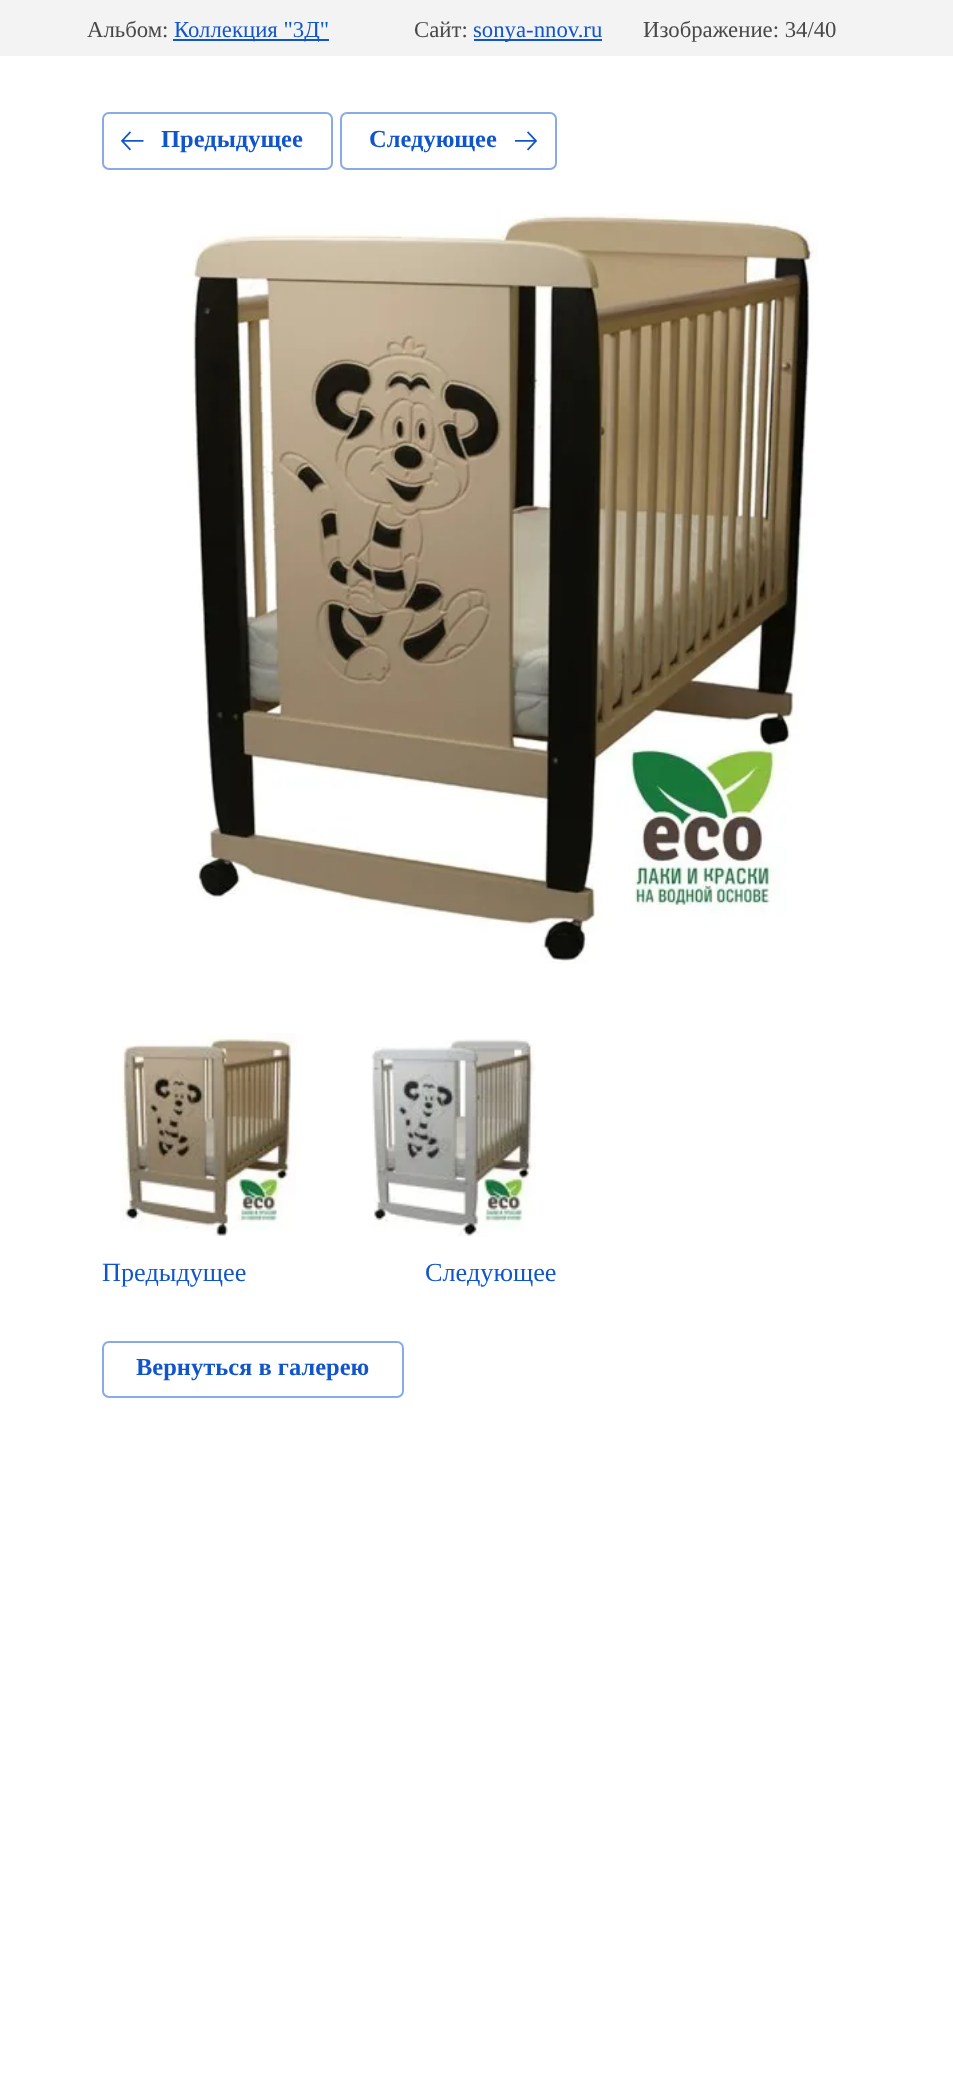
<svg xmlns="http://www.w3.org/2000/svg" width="953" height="2087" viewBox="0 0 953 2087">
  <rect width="100%" height="100%" fill="#fff"/>
  <path d="M0 0h953v56H0z" fill="#f3f3f3"/>
  <path d="M173 39h156v2H173z" fill="#15c"/>
  <path d="M474 39h128v2H474z" fill="#15c"/>
  <rect x="103" y="113" width="229" height="56" rx="6" fill="none" stroke="#88aae6" stroke-width="2"/>
  <image x="121" y="131" width="23" height="20" href="img/1.png"/>
  <rect x="341" y="113" width="215" height="56" rx="6" fill="none" stroke="#88aae6" stroke-width="2"/>
  <image x="515" y="131" width="22" height="20" href="img/2.png"/>
  <image x="185" y="213" width="633" height="751" href="img/3.png"/>
  <image x="120" y="1033" width="177" height="203" href="img/4.png"/>
  <image x="371" y="1039" width="165" height="198" href="img/5.png"/>
  <rect x="103" y="1342" width="300" height="55" rx="6" fill="none" stroke="#88aae6" stroke-width="2"/>
  <text x="87" y="37" font-family="Liberation Serif" font-size="22.75" fill="#484848">Альбом:</text>
  <text x="174" y="37" font-family="Liberation Serif" font-size="22.75" fill="#15c">Коллекция "3Д"</text>
  <text x="414" y="37" font-family="Liberation Serif" font-size="22.75" fill="#484848">Сайт:</text>
  <text x="473" y="37" font-family="Liberation Serif" font-size="22.75" fill="#15c">sonya-nnov.ru</text>
  <text x="643" y="37" font-family="Liberation Serif" font-size="22.75" fill="#484848">Изображение: 34/40</text>
  <g font-family="Liberation Serif" font-size="24.5" font-weight="bold" fill="#15c">
    <text x="161" y="147">Предыдущее</text>
    <text x="369" y="147">Следующее</text>
  </g>
  <g font-family="Liberation Serif" font-size="26.25" fill="#15c">
    <text x="102" y="1281">Предыдущее</text>
    <text x="425" y="1281">Следующее</text>
  </g>
  <text x="136" y="1375" font-family="Liberation Serif" font-size="24.5" font-weight="bold" fill="#15c">Вернуться в галерею</text>
</svg>
